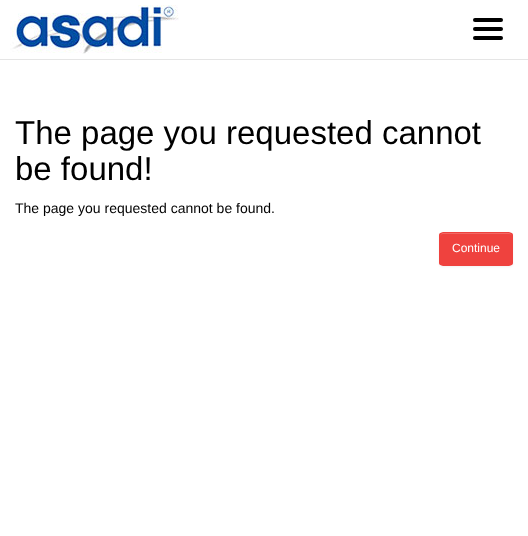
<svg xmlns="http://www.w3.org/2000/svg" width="528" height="536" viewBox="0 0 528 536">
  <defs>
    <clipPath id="clip1"><rect x="439" y="232" width="74" height="34" rx="4"/></clipPath>
  </defs>
  <rect width="100%" height="100%" fill="#fff"/>
  <path d="M0 59h528v1H0z" fill="#e5e5e5"/>
  <image x="10" y="5" width="169" height="49" href="img/1.png"/>
  <rect x="473" y="18" width="30" height="4" rx="2" fill="#000"/>
  <rect x="473" y="27" width="30" height="4" rx="2" fill="#000"/>
  <rect x="473" y="36" width="30" height="4" rx="2" fill="#000"/>
  <rect x="439" y="233" width="74" height="34" rx="4" fill="#0000000d" filter="blur(1px)"/>
  <g clip-path="url(#clip1)">
    <path d="M439 233h74v32H439z" fill="#ef423e"/>
  </g>
  <path d="M443 234H509C511 234 512 235 512 237C512 230 502 233 498 233H454C450 233 440 230 440 237C440 235 441 234 443 234Z" fill="#ffffff33"/>
  <rect x="439.5" y="232.5" width="73" height="33" rx="3.5" fill="none" stroke="#ef423e"/>
  <g font-family="Liberation Sans" font-size="33" fill="#000">
    <text x="15" y="144">The page you requested cannot</text>
    <text x="15" y="180">be found!</text>
  </g>
  <text x="15" y="213" font-family="Liberation Sans" font-size="14" fill="#000">The page you requested cannot be found.</text>
  <text x="452" y="252" font-family="Liberation Sans" font-size="12" fill="#fff">Continue</text>
</svg>
